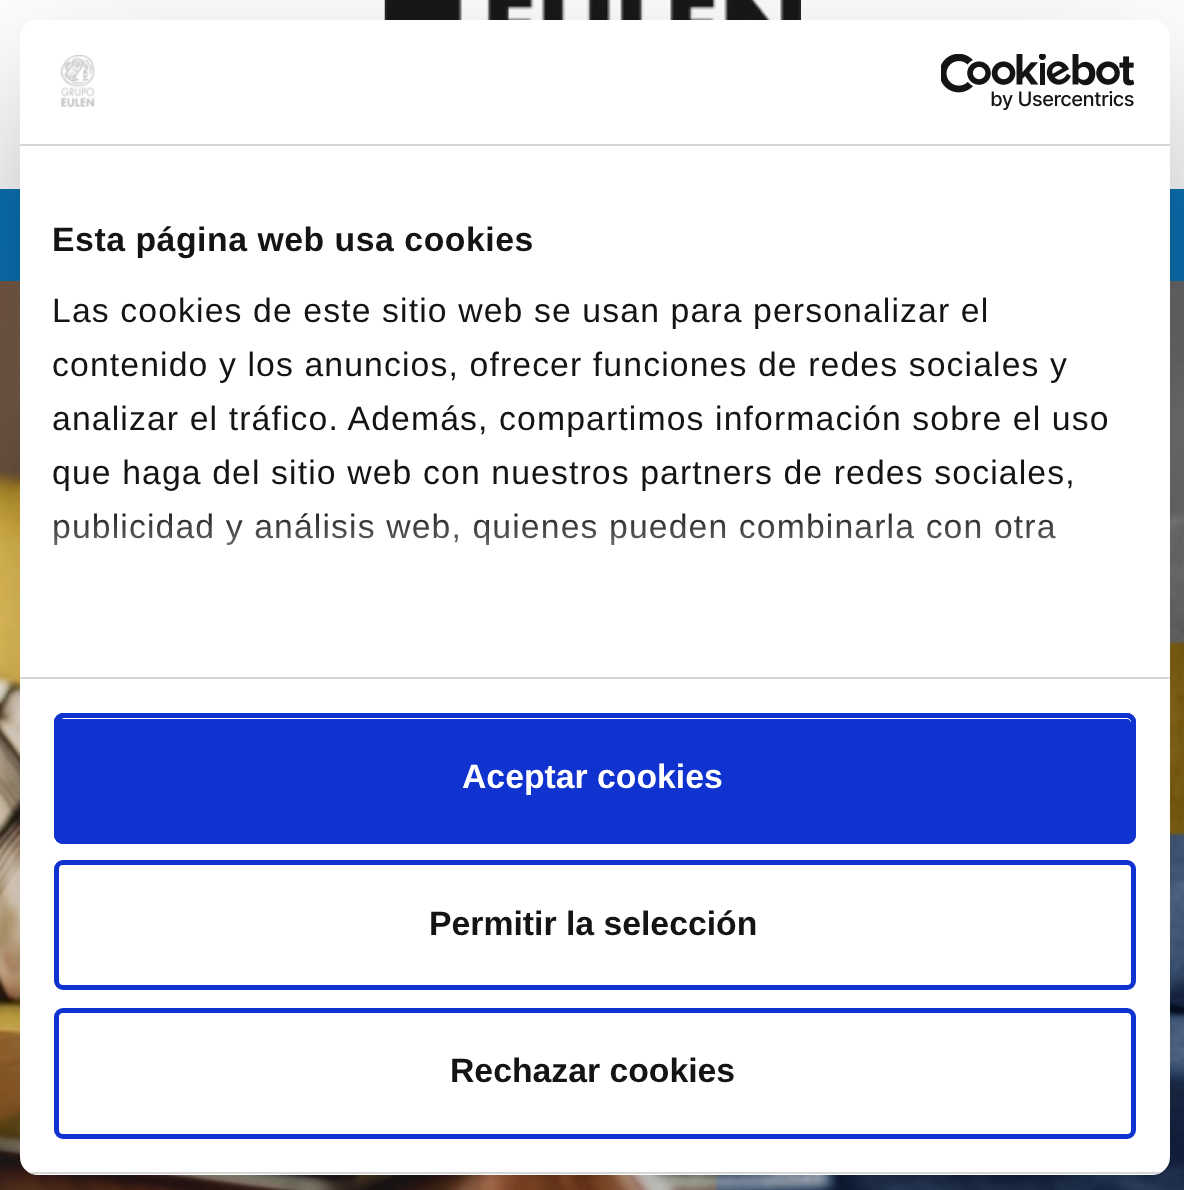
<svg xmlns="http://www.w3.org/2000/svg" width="1184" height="1190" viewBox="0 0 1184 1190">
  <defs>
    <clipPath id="clip1"><rect x="20" y="20" width="1150" height="1155" rx="18"/></clipPath>
    <linearGradient id="g1" gradientUnits="userSpaceOnUse" x1="579" y1="676" x2="579" y2="507"><stop offset="0" stop-color="#fff"/><stop offset="0.5" stop-color="#fff" stop-opacity="0.8"/><stop offset="1" stop-color="#fff" stop-opacity="0"/></linearGradient>
  </defs>
  <rect width="100%" height="100%" fill="#fff"/>
  <image x="384" y="0" width="417" height="20" href="img/1.png"/>
  <path d="M0 189h1184v92H0z" fill="#0b72b5"/>
  <image x="0" y="281" width="1184" height="909" href="img/4.png"/>
  <rect x="20" y="92" width="1150" height="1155" rx="18" fill="#0000004d" filter="blur(76.5px)"/>
  <rect x="20" y="20" width="1150" height="1155" rx="18" fill="#fff"/>
  <path d="M20 144h1150v2H20z" fill="#d6d6d6"/>
  <image x="60" y="55" width="35" height="52" href="img/2.png"/>
  <image x="941" y="54" width="194" height="56" href="img/3.png"/>
  <path d="M20 677h1150v2H20z" fill="#d6d6d6"/>
  <g clip-path="url(#clip1)">
    <path d="M20 1172h1150v2H20z" fill="#d6d6d6"/>
  </g>
  <rect x="54" y="713" width="1082" height="131" rx="9" fill="#1032cf"/>
  <path d="M64 718L61 719H1127C1129 719 1131 721 1131 723V837L1132 834V722C1131 720 1129 718 1127 718Z" fill="#fff"/>
  <rect x="56.5" y="715.5" width="1077" height="126" rx="6.5" fill="none" stroke="#1032cf" stroke-width="5"/>
  <rect x="56.5" y="862.5" width="1077" height="125" rx="6.5" fill="none" stroke="#1032cf" stroke-width="5"/>
  <rect x="56.5" y="1010.5" width="1077" height="126" rx="6.5" fill="none" stroke="#1032cf" stroke-width="5"/>
  <text x="52" y="251" font-family="Liberation Sans" font-size="33.75" font-weight="bold" letter-spacing="0.55" fill="#141414">Esta página web usa cookies</text>
  <g font-family="Liberation Sans" font-size="33.75" letter-spacing="1.12" fill="#141414">
    <text x="52" y="322">Las cookies de este sitio web se usan para personalizar el</text>
    <text x="52" y="376">contenido y los anuncios, ofrecer funciones de redes sociales y</text>
    <text x="52" y="430">analizar el tráfico. Además, compartimos información sobre el uso</text>
    <text x="52" y="484">que haga del sitio web con nuestros partners de redes sociales,</text>
    <text x="52" y="538">publicidad y análisis web, quienes pueden combinarla con otra</text>
  </g>
  <path d="M54 513h1002v32H54z" fill="url(#g1)"/>
  <text x="462" y="788" font-family="Liberation Sans" font-size="33.75" font-weight="bold" fill="#fff">Aceptar cookies</text>
  <g font-family="Liberation Sans" font-size="33.75" font-weight="bold" fill="#141414">
    <text x="429" y="935">Permitir la selección</text>
    <text x="450" y="1082">Rechazar cookies</text>
  </g>
</svg>
